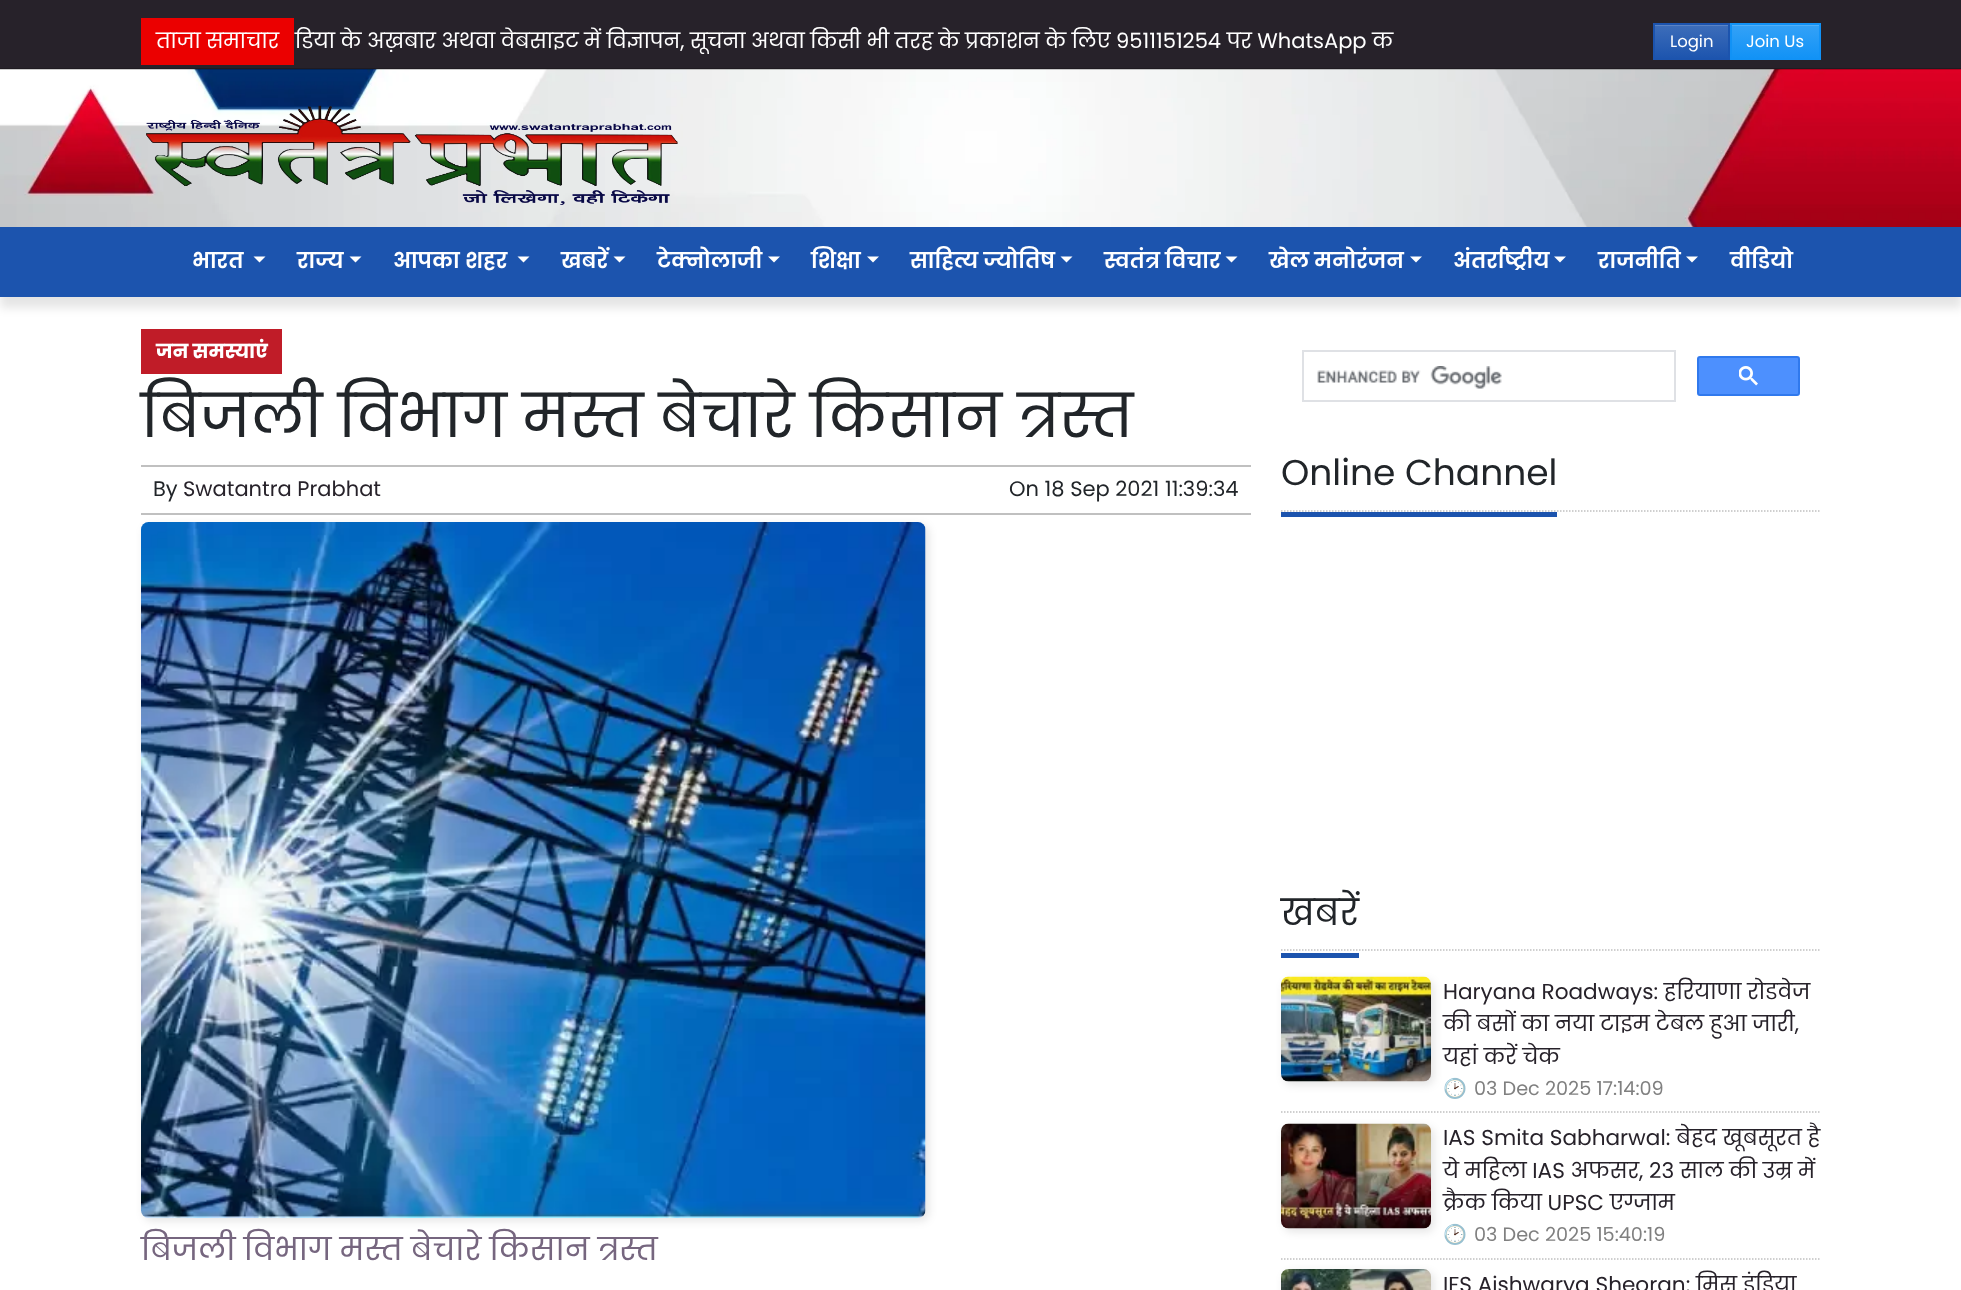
<svg xmlns="http://www.w3.org/2000/svg" width="1961" height="1290" viewBox="0 0 1961 1290">
  <defs>
    <linearGradient id="g1" gradientUnits="userSpaceOnUse" x1="1691" y1="24" x2="1691" y2="59"><stop offset="0" stop-color="#3e6eba"/><stop offset="1" stop-color="#1c54ae"/></linearGradient>
    <linearGradient id="g2" gradientUnits="userSpaceOnUse" x1="1775" y1="24" x2="1775" y2="59"><stop offset="0" stop-color="#35a2f7"/><stop offset="1" stop-color="#1192f6"/></linearGradient>
  </defs>
  <rect width="100%" height="100%" fill="#fff"/>
  <path d="M0 11h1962v297H0z" fill="#0000001a" filter="blur(5px)"/>
  <image x="0" y="69" width="1961" height="158" href="img/1.png"/>
  <path d="M0 0h1961v69H0z" fill="#27222a"/>
  <path d="M0 68h1961v2H0z" fill="#00000033"/>
  <path d="M141 18h153v47H141z" fill="#eb0000"/>
  <path d="M1655 26h73v32H1655z" fill="url(#g1)"/>
  <path d="M1655 25h73v1H1655z" fill="#5b83c4"/>
  <path d="M1654 24h75v35H1654z" fill="none" stroke="#1c54ae" stroke-width="2"/>
  <path d="M1732 26h87v32H1732z" fill="url(#g2)"/>
  <path d="M1731 25h89v1H1731z" fill="#52b0f8"/>
  <path d="M1731 24h89v35H1731z" fill="none" stroke="#1192f6" stroke-width="2"/>
  <image x="146" y="105" width="532" height="100" href="img/2.png"/>
  <path d="M0 227h1961v70H0z" fill="#1c54ae"/>
  <path d="M253.5 256.5H265.5L259.5 262.5Z" fill="#fff"/>
  <path d="M349.5 256.5H361.5L355.5 262.5Z" fill="#fff"/>
  <path d="M517.5 256.5H529.5L523.5 262.5Z" fill="#fff"/>
  <path d="M613.5 256.5H625.5L619.5 262.5Z" fill="#fff"/>
  <path d="M768 256.5H780L774 262.5Z" fill="#fff"/>
  <path d="M867 256.5H879L873 262.5Z" fill="#fff"/>
  <path d="M1060.5 256.5H1072.5L1066.5 262.5Z" fill="#fff"/>
  <path d="M1225.5 256.5H1237.5L1231.5 262.5Z" fill="#fff"/>
  <path d="M1410 256.5H1422L1416 262.5Z" fill="#fff"/>
  <path d="M1554 256.5H1566L1560 262.5Z" fill="#fff"/>
  <path d="M1686 256.5H1698L1692 262.5Z" fill="#fff"/>
  <path d="M141 329h141v45H141z" fill="#c01c28"/>
  <path d="M141 465h1110v2H141z" fill="#c0c0c0"/>
  <path d="M141 513h1110v2H141z" fill="#c0c0c0"/>
  <rect x="144" y="525" width="785" height="696" rx="8" fill="#0000001a" filter="blur(4px)"/>
  <image x="141" y="522" width="785" height="696" href="img/3.png"/>
  <path d="M1303 351h372v50H1303z" fill="none" stroke="#dfe1e5" stroke-width="2"/>
  <image x="1317" y="366" width="185" height="23" href="img/4.png"/>
  <rect x="1698" y="357" width="101" height="38" rx="2" fill="#4d90fe" stroke="#3079ed" stroke-width="2"/>
  <image x="1739" y="366" width="19" height="20" href="img/5.png"/>
  <path d="M1281 511H1821" fill="none" stroke="#c0c0c0" stroke-width="1.5" stroke-dasharray="1.5 1.5"/>
  <path d="M1281 512h276v5H1281z" fill="#1c54ae"/>
  <path d="M1281 950H1821" fill="none" stroke="#c0c0c0" stroke-width="1.5" stroke-dasharray="1.5 1.5"/>
  <path d="M1281 953h78v5H1281z" fill="#1c54ae"/>
  <path d="M1281 1112H1821" fill="none" stroke="#c0c0c0" stroke-width="1.5" stroke-dasharray="1.5 1.5"/>
  <rect x="1284" y="980" width="150" height="105" rx="8" fill="#0000001a" filter="blur(4px)"/>
  <image x="1281" y="976" width="150" height="106" href="img/6.png"/>
  <path d="M1281 1259H1821" fill="none" stroke="#c0c0c0" stroke-width="1.5" stroke-dasharray="1.5 1.5"/>
  <rect x="1284" y="1127" width="150" height="105" rx="8" fill="#0000001a" filter="blur(4px)"/>
  <image x="1281" y="1123" width="150" height="106" href="img/7.png"/>
  <rect x="1284" y="1272" width="150" height="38" rx="8" fill="#0000001a" filter="blur(4px)"/>
  <image x="1281" y="1269" width="150" height="21" href="img/8.png"/>
  <g font-family="Poppins" font-size="21" fill="#fff">
    <text x="156" y="48">ताजा समाचार</text>
    <text x="295" y="48">डिया के अख़बार अथवा वेबसाइट में विज्ञापन, सूचना अथवा किसी भी तरह के प्रकाशन के लिए 9511151254 पर WhatsApp क</text>
  </g>
  <g font-family="Poppins" font-size="16.5" fill="#fff">
    <text x="1670" y="47">Login</text>
    <text x="1746" y="47">Join Us</text>
  </g>
  <g font-family="Poppins" font-size="21.6" font-weight="600" fill="#fff">
    <text x="192" y="268">भारत</text>
    <text x="297" y="268">राज्य</text>
    <text x="393" y="268">आपका शहर</text>
    <text x="561" y="268">खबरें</text>
    <text x="657" y="268">टेक्नोलाजी</text>
    <text x="811" y="268">शिक्षा</text>
    <text x="910" y="268">साहित्य ज्योतिष</text>
    <text x="1104" y="268">स्वतंत्र विचार</text>
    <text x="1269" y="268">खेल मनोरंजन</text>
    <text x="1453" y="268">अंतर्राष्ट्रीय</text>
    <text x="1598" y="268">राजनीति</text>
    <text x="1730" y="268">वीडियो</text>
  </g>
  <text x="156" y="358" font-family="Poppins" font-size="19.25" font-weight="bold" fill="#fff">जन समस्याएं</text>
  <text x="141" y="437" font-family="Poppins" font-size="60" fill="#212529">बिजली विभाग मस्त बेचारे किसान त्रस्त</text>
  <text x="153" y="496" font-family="Poppins" font-size="21" fill="#212529">By</text>
  <text x="183" y="496" font-family="Poppins" font-size="21" fill="#27222a">Swatantra Prabhat</text>
  <text x="1009" y="496" font-family="Poppins" font-size="21" fill="#212529">On 18 Sep 2021 11:39:34</text>
  <text x="141" y="1260" font-family="Poppins" font-size="31.25" fill="#76667f">बिजली विभाग मस्त बेचारे किसान त्रस्त</text>
  <g font-family="Poppins" font-size="36" fill="#212529">
    <text x="1281" y="485">Online Channel</text>
    <text x="1281" y="925">खबरें</text>
  </g>
  <g font-family="Poppins" font-size="21.6" fill="#27222a">
    <text x="1443" y="999">Haryana Roadways: हरियाणा रोडवेज</text>
    <text x="1443" y="1031">की बसों का नया टाइम टेबल हुआ जारी,</text>
    <text x="1443" y="1064">यहां करें चेक</text>
  </g>
  <text x="1443" y="1095" font-family="Noto Color Emoji" font-size="19.25" fill="#808080">🕑</text>
  <text x="1474" y="1095" font-family="Poppins" font-size="19.25" fill="#808080">03 Dec 2025 17:14:09</text>
  <g font-family="Poppins" font-size="21.6" fill="#27222a">
    <text x="1443" y="1145">IAS Smita Sabharwal: बेहद खूबसूरत है</text>
    <text x="1443" y="1178">ये महिला IAS अफसर, 23 साल की उम्र में</text>
    <text x="1443" y="1210">क्रैक किया UPSC एग्जाम</text>
  </g>
  <text x="1443" y="1241" font-family="Noto Color Emoji" font-size="19.25" fill="#808080">🕑</text>
  <text x="1474" y="1241" font-family="Poppins" font-size="19.25" fill="#808080">03 Dec 2025 15:40:19</text>
  <text x="1443" y="1292" font-family="Poppins" font-size="21.6" fill="#27222a">IFS Aishwarya Sheoran: मिस इंडिया</text>
</svg>
